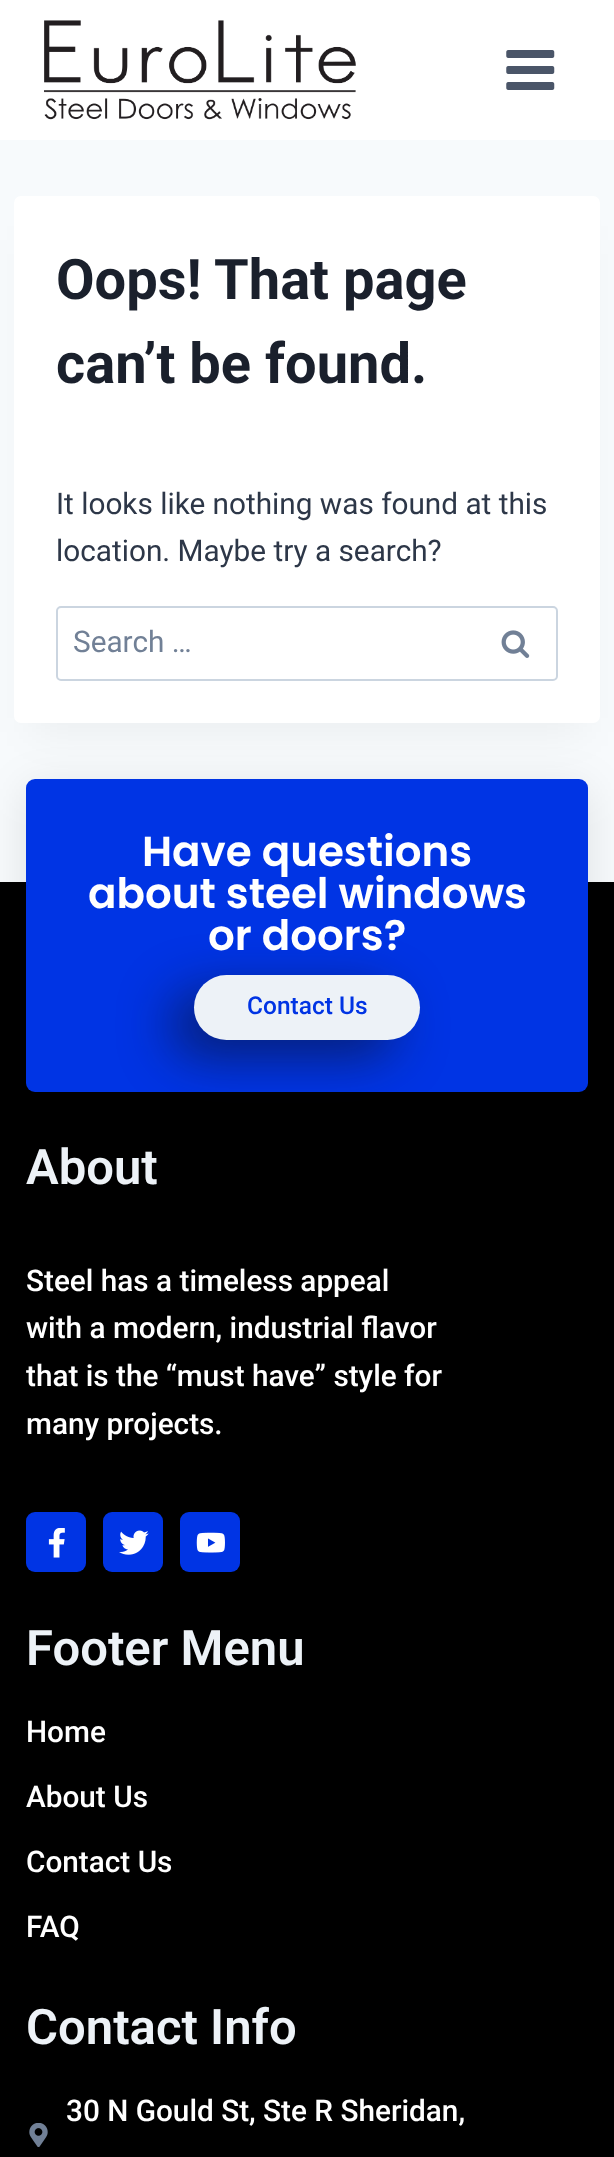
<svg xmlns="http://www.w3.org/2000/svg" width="614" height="2157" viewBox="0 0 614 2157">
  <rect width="100%" height="100%" fill="#f7fafc"/>
  <path d="M0 0h614v140H0z" fill="#fff"/>
  <image x="44" y="20" width="312" height="100" href="img/1.png"/>
  <image x="506" y="50" width="49" height="40" href="img/2.png"/>
  <path d="M32 240h551v492H32z" fill="#0000000d" filter="blur(22px)"/>
  <rect x="14" y="196" width="586" height="527" rx="7" fill="#fff"/>
  <rect x="57" y="607" width="500" height="73" rx="4" fill="none" stroke="#cbd5e0" stroke-width="2"/>
  <image x="501" y="630" width="29" height="28" href="img/3.png"/>
  <path d="M0 882h614v1275H0z" fill="#000"/>
  <rect x="26" y="788" width="562" height="313" rx="9" fill="#0000001a" filter="blur(22px)"/>
  <rect x="26" y="779" width="562" height="313" rx="9" fill="#0034e4"/>
  <rect x="170" y="992" width="226" height="65" rx="32.5" fill="#0b0f1e8f" filter="blur(26px)"/>
  <rect x="194" y="975" width="226" height="65" rx="32.5" fill="#edf2f7"/>
  <rect x="26" y="1512" width="60" height="60" rx="9" fill="#0034e4"/>
  <image x="48" y="1528" width="17" height="30" href="img/4.png"/>
  <rect x="103" y="1512" width="60" height="60" rx="9" fill="#0034e4"/>
  <image x="119" y="1530" width="30" height="25" href="img/5.png"/>
  <rect x="180" y="1512" width="60" height="60" rx="9" fill="#0034e4"/>
  <image x="196" y="1532" width="29" height="21" href="img/6.png"/>
  <image x="29" y="2123" width="19" height="24" href="img/7.png"/>
  <g font-family="Roboto" font-size="56" font-weight="bold" fill="#1a202c">
    <text x="56" y="299">Oops! That page</text>
    <text x="56" y="383">can’t be found.</text>
  </g>
  <g font-family="Roboto" font-size="29.75" fill="#2d3748">
    <text x="56" y="514">It looks like nothing was found at this</text>
    <text x="56" y="561">location. Maybe try a search?</text>
  </g>
  <text x="73" y="652" font-family="Roboto" font-size="29.75" fill="#718096">Search …</text>
  <g font-family="Poppins" font-size="42" font-weight="600" fill="#fff">
    <text x="142" y="866">Have questions</text>
    <text x="88" y="908">about steel windows</text>
    <text x="208" y="950">or doors?</text>
  </g>
  <text x="247" y="1014" font-family="Roboto" font-size="24.5" font-weight="500" fill="#0034e4">Contact Us</text>
  <text x="26" y="1184" font-family="Roboto" font-size="49" font-weight="600" fill="#edf2f7">About</text>
  <g font-family="Roboto" font-size="29.75" font-weight="500" fill="#fff">
    <text x="26" y="1291">Steel has a timeless appeal</text>
    <text x="26" y="1338">with a modern, industrial flavor</text>
    <text x="26" y="1386">that is the “must have” style for</text>
    <text x="26" y="1434">many projects.</text>
  </g>
  <text x="26" y="1665" font-family="Roboto" font-size="49" font-weight="600" fill="#edf2f7">Footer Menu</text>
  <g font-family="Roboto" font-size="29.75" font-weight="500" fill="#fff">
    <text x="26" y="1742">Home</text>
    <text x="26" y="1807">About Us</text>
    <text x="26" y="1872">Contact Us</text>
    <text x="26" y="1937">FAQ</text>
  </g>
  <text x="26" y="2044" font-family="Roboto" font-size="49" font-weight="600" fill="#edf2f7">Contact Info</text>
  <text x="66" y="2121" font-family="Roboto" font-size="29.75" font-weight="500" fill="#fff">30 N Gould St, Ste R Sheridan,</text>
</svg>
